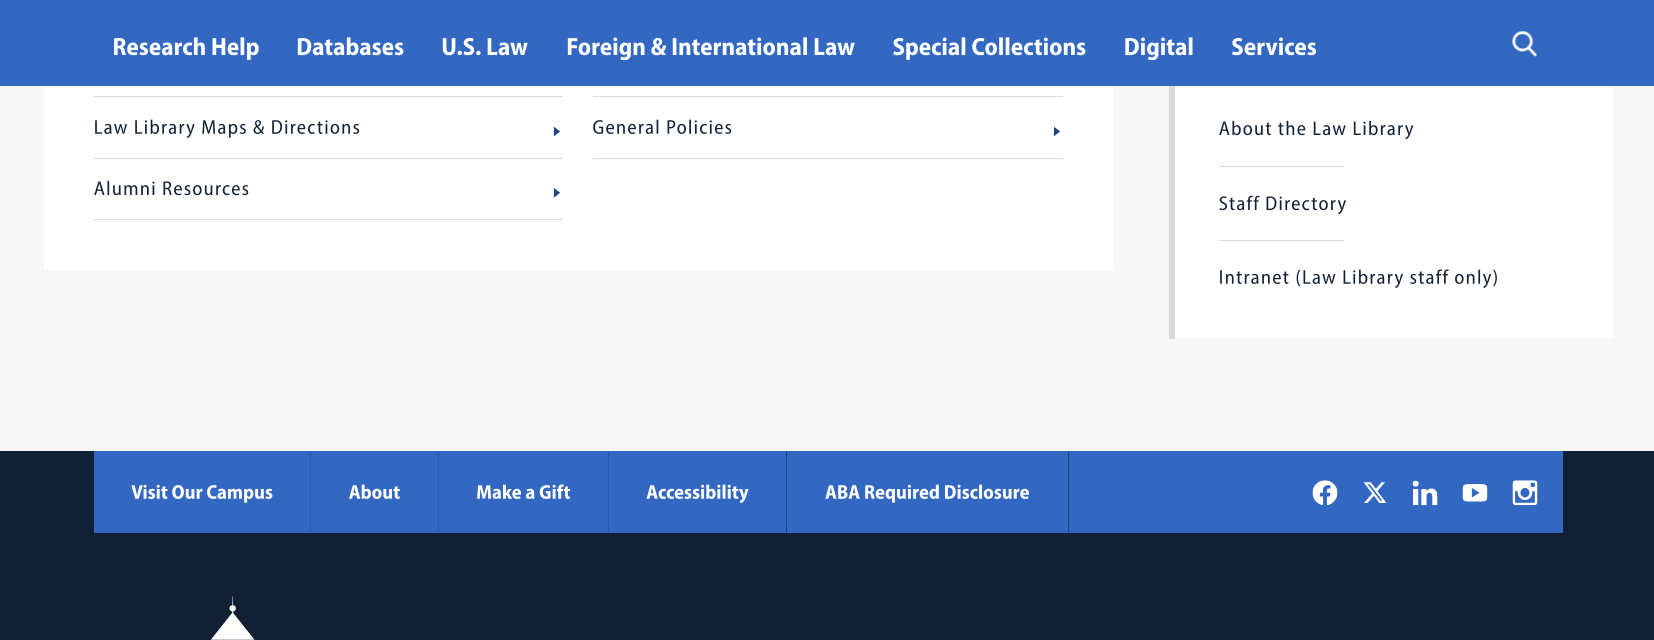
<svg xmlns="http://www.w3.org/2000/svg" width="1654" height="640" viewBox="0 0 1654 640">
  <rect width="100%" height="100%" fill="#f7f7f7"/>
  <path d="M0 0h1654v86H0z" fill="#3268c2"/>
  <image x="114" y="37" width="145" height="23" href="img/1.png"/>
  <image x="297" y="37" width="107" height="19" href="img/2.png"/>
  <image x="442" y="37" width="86" height="19" href="img/3.png"/>
  <image x="567" y="37" width="288" height="24" href="img/4.png"/>
  <image x="893" y="37" width="193" height="23" href="img/5.png"/>
  <image x="1125" y="37" width="68" height="24" href="img/6.png"/>
  <image x="1232" y="37" width="84" height="19" href="img/7.png"/>
  <image x="1512" y="31" width="25" height="26" href="img/8.png"/>
  <path d="M44 86h1069v184H44z" fill="#fff"/>
  <path d="M94 96h469v1H94z" fill="#d9d9d9"/>
  <path d="M593 96h470v1H593z" fill="#d9d9d9"/>
  <path d="M94 158h469v1H94z" fill="#d9d9d9"/>
  <image x="95" y="119" width="265" height="19" href="img/9.png"/>
  <image x="553" y="126" width="7" height="11" href="img/10.png"/>
  <path d="M593 158h470v1H593z" fill="#d9d9d9"/>
  <image x="593" y="119" width="139" height="15" href="img/11.png"/>
  <image x="1053" y="126" width="7" height="11" href="img/10.png"/>
  <path d="M94 219h469v1H94z" fill="#d9d9d9"/>
  <image x="94" y="180" width="155" height="16" href="img/12.png"/>
  <image x="553" y="188" width="7" height="10" href="img/13.png"/>
  <path d="M1175 86h438v253H1175z" fill="#fff"/>
  <path d="M1169 86h6v253H1169z" fill="#d9d9d9"/>
  <image x="1219" y="120" width="195" height="20" href="img/14.png"/>
  <path d="M1219 166h125v1H1219z" fill="#d8d8d9"/>
  <image x="1219" y="195" width="127" height="20" href="img/15.png"/>
  <path d="M1219 240h125v1H1219z" fill="#d8d8d9"/>
  <image x="1220" y="269" width="277" height="19" href="img/16.png"/>
  <path d="M0 451h1654v189H0z" fill="#122035"/>
  <path d="M94 451h1469v82H94z" fill="#3268c2"/>
  <path d="M310 451h1v82H310z" fill="#2c5ba8"/>
  <image x="131" y="484" width="142" height="19" href="img/17.png"/>
  <path d="M438 451h1v82H438z" fill="#2c5ba8"/>
  <image x="349" y="484" width="51" height="15" href="img/18.png"/>
  <path d="M608 451h1v82H608z" fill="#2c5ba8"/>
  <image x="477" y="484" width="93" height="15" href="img/19.png"/>
  <path d="M786 451h1v82H786z" fill="#23467f"/>
  <image x="646" y="484" width="103" height="20" href="img/20.png"/>
  <path d="M1068 451h1v82H1068z" fill="#23467f"/>
  <image x="825" y="484" width="204" height="19" href="img/21.png"/>
  <image x="1312" y="480" width="26" height="26" href="img/22.png"/>
  <image x="1363" y="482" width="24" height="21" href="img/23.png"/>
  <image x="1412" y="480" width="26" height="26" href="img/24.png"/>
  <image x="1462" y="484" width="26" height="18" href="img/25.png"/>
  <image x="1512" y="480" width="26" height="26" href="img/26.png"/>
  <image x="211" y="596" width="44" height="44" href="img/27.png"/>
</svg>
